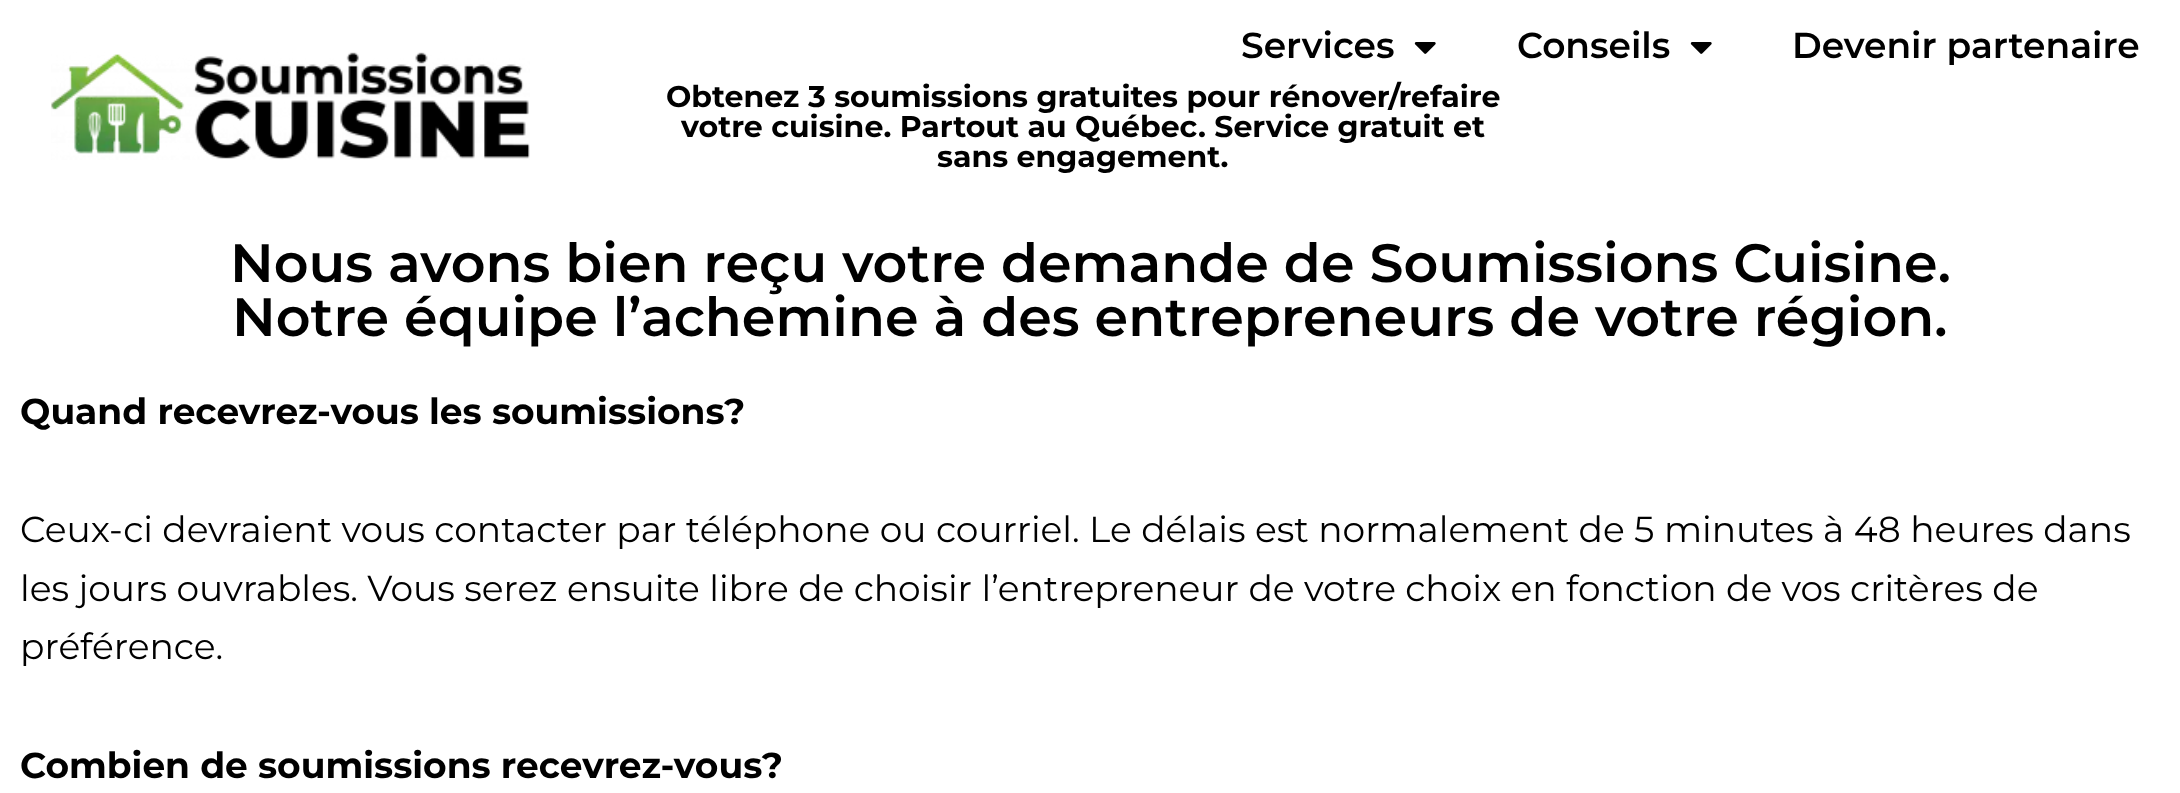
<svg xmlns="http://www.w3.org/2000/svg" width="2180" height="793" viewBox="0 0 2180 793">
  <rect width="100%" height="100%" fill="#fff"/>
  <image x="1414" y="42" width="22" height="12" href="img/1.png"/>
  <image x="1690" y="42" width="22" height="12" href="img/1.png"/>
  <image x="51" y="52" width="479" height="108" href="img/2.png"/>
  <g font-family="Montserrat" font-size="36" font-weight="600" fill="#000">
    <text x="1241" y="58">Services</text>
    <text x="1517" y="58">Conseils</text>
    <text x="1792" y="58">Devenir partenaire</text>
  </g>
  <g font-family="Montserrat" font-size="30" font-weight="bold" fill="#000">
    <text x="666" y="107">Obtenez 3 soumissions gratuites pour rénover/refaire</text>
    <text x="681" y="137">votre cuisine. Partout au Québec. Service gratuit et</text>
    <text x="937" y="167">sans engagement.</text>
  </g>
  <g font-family="Montserrat" font-size="54" font-weight="600" fill="#000">
    <text x="230" y="282">Nous avons bien reçu votre demande de Soumissions Cuisine.</text>
    <text x="232" y="336">Notre équipe l’achemine à des entrepreneurs de votre région.</text>
  </g>
  <text x="20" y="424" font-family="Montserrat" font-size="36" font-weight="bold" fill="#000">Quand recevrez-vous les soumissions?</text>
  <g font-family="Montserrat" font-size="36" fill="#000">
    <text x="20" y="542">Ceux-ci devraient vous contacter par téléphone ou courriel. Le délais est normalement de 5 minutes à 48 heures dans</text>
    <text x="20" y="601">les jours ouvrables. Vous serez ensuite libre de choisir l’entrepreneur de votre choix en fonction de vos critères de</text>
    <text x="20" y="659">préférence.</text>
  </g>
  <text x="20" y="778" font-family="Montserrat" font-size="36" font-weight="bold" fill="#000">Combien de soumissions recevrez-vous?</text>
</svg>
